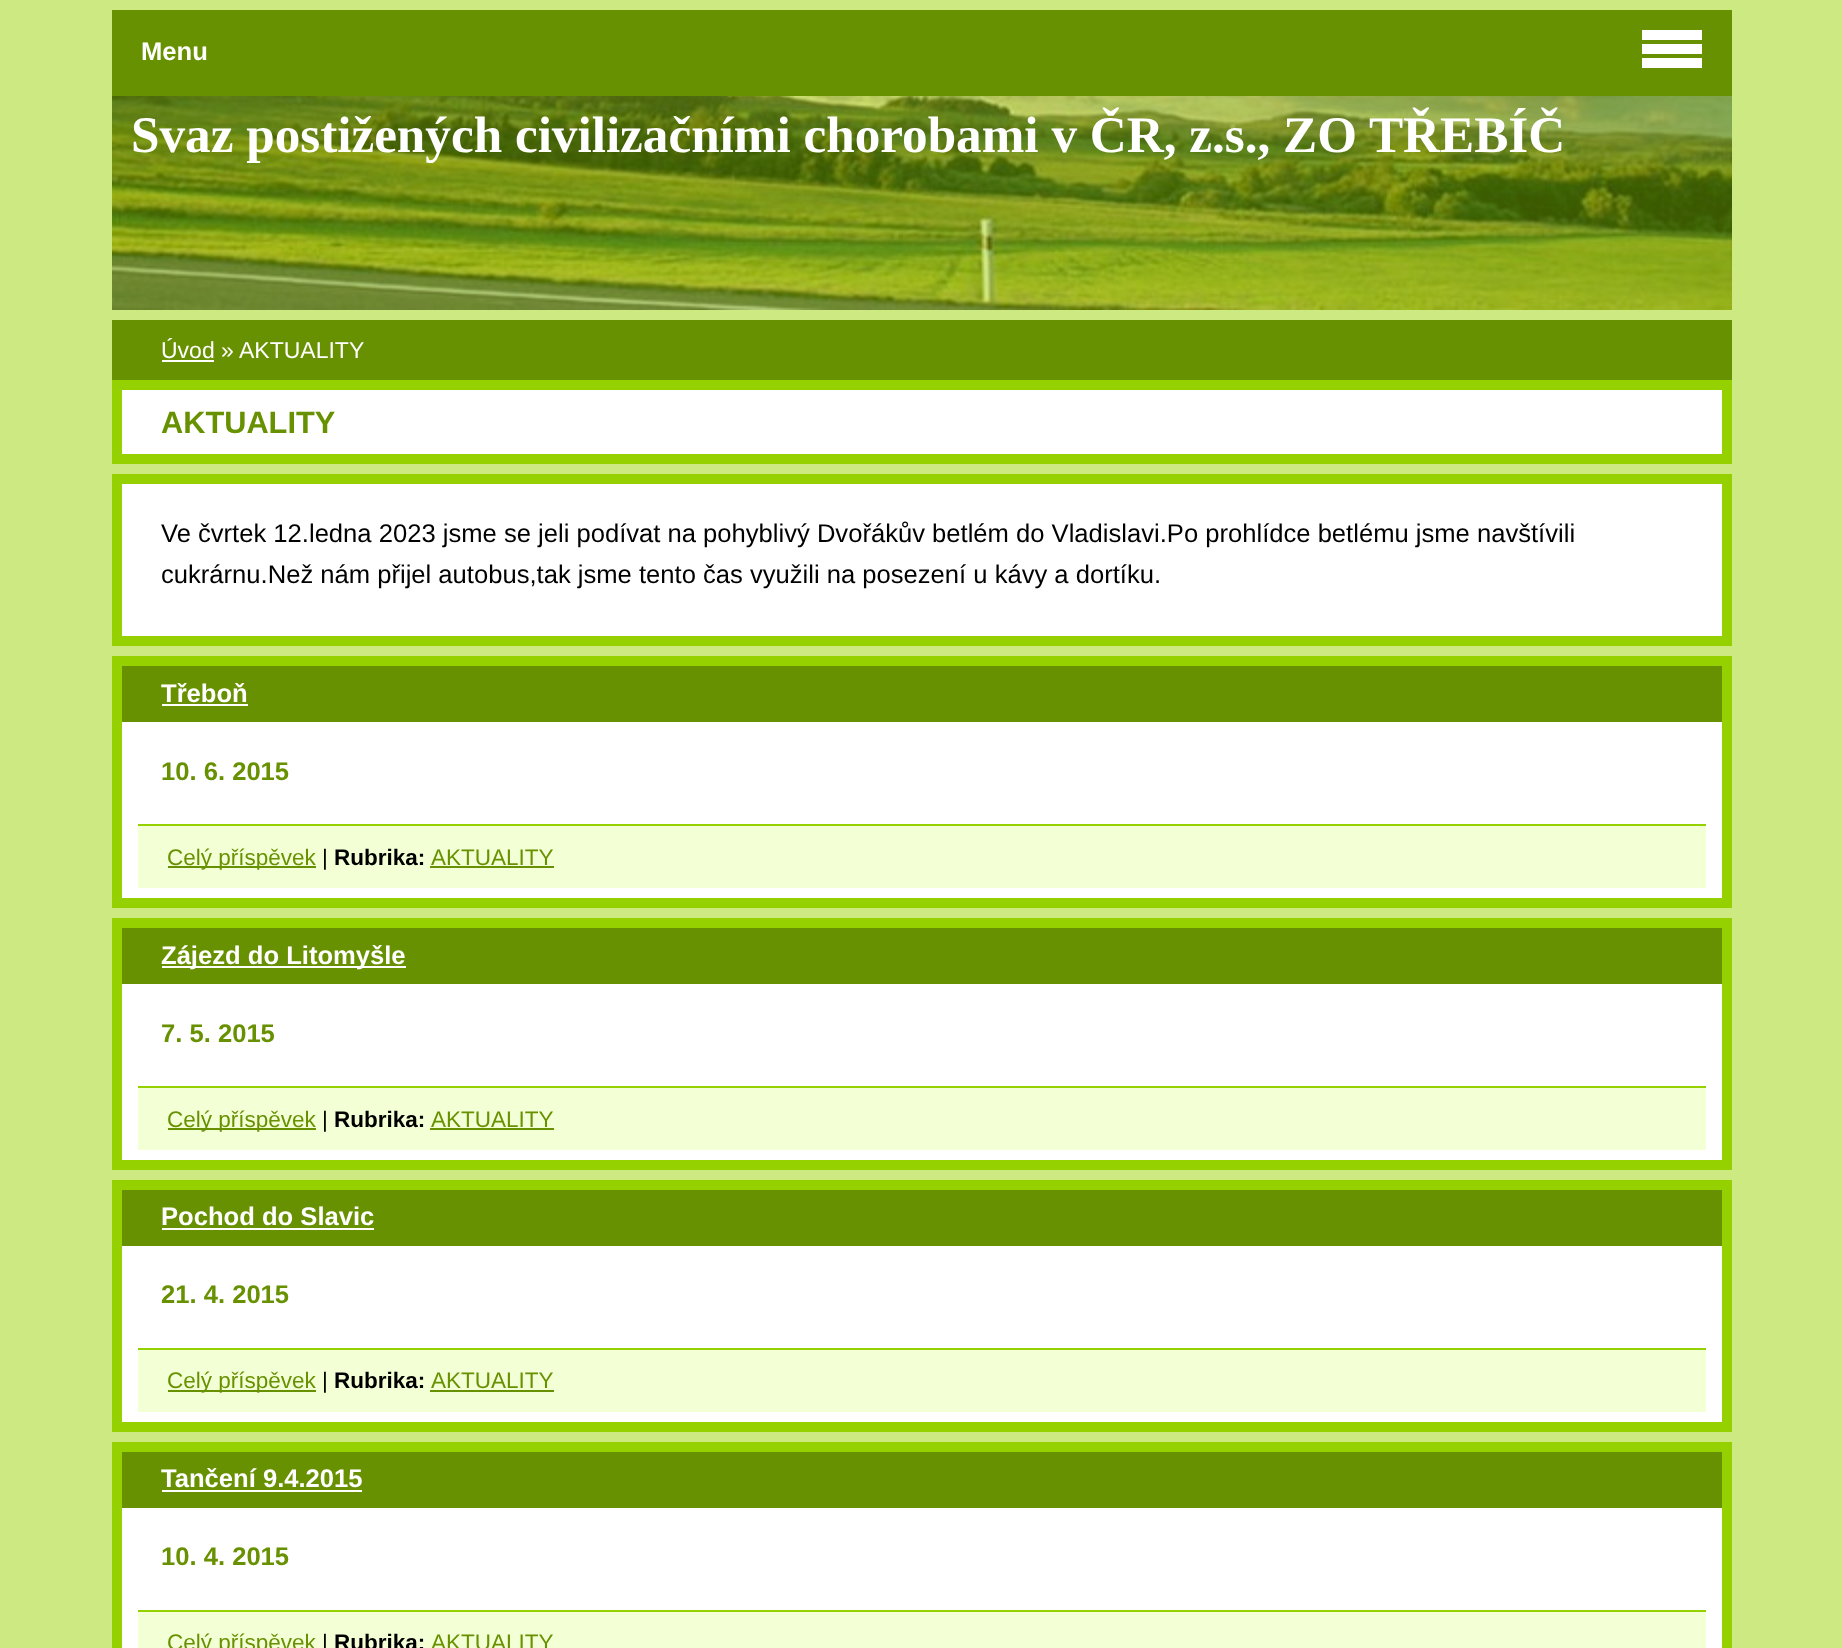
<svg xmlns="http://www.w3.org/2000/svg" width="1842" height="1648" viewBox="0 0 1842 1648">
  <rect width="100%" height="100%" fill="#ccea81"/>
  <path d="M112 10h1620v86H112z" fill="#689101"/>
  <path d="M112 320h1620v60H112z" fill="#689101"/>
  <path d="M162 360h52v2H162z" fill="#fff"/>
  <path d="M117 385h1610v74H117z" fill="#fff" stroke="#95d001" stroke-width="10"/>
  <path d="M117 479h1610v162H117z" fill="#fff" stroke="#95d001" stroke-width="10"/>
  <path d="M122 722h1600v176H122z" fill="#fff"/>
  <path d="M117 661h1610v242H117z" fill="none" stroke="#95d001" stroke-width="10"/>
  <path d="M122 666h1600v56H122z" fill="#689101"/>
  <path d="M162 704h86v2H162z" fill="#fff"/>
  <path d="M138 826h1568v62H138z" fill="#f3ffd5"/>
  <path d="M138 824h1568v2H138z" fill="#95d001"/>
  <path d="M168 866h148v2H168z" fill="#689101"/>
  <path d="M430 866h124v2H430z" fill="#689101"/>
  <path d="M122 984h1600v176H122z" fill="#fff"/>
  <path d="M117 923h1610v242H117z" fill="none" stroke="#95d001" stroke-width="10"/>
  <path d="M122 928h1600v56H122z" fill="#689101"/>
  <path d="M162 966h244v2H162z" fill="#fff"/>
  <path d="M138 1088h1568v62H138z" fill="#f3ffd5"/>
  <path d="M138 1086h1568v2H138z" fill="#95d001"/>
  <path d="M168 1128h148v2H168z" fill="#689101"/>
  <path d="M430 1128h124v2H430z" fill="#689101"/>
  <path d="M122 1246h1600v176H122z" fill="#fff"/>
  <path d="M117 1185h1610v242H117z" fill="none" stroke="#95d001" stroke-width="10"/>
  <path d="M122 1190h1600v56H122z" fill="#689101"/>
  <path d="M162 1228h212v2H162z" fill="#fff"/>
  <path d="M138 1350h1568v62H138z" fill="#f3ffd5"/>
  <path d="M138 1348h1568v2H138z" fill="#95d001"/>
  <path d="M168 1390h148v2H168z" fill="#689101"/>
  <path d="M430 1390h124v2H430z" fill="#689101"/>
  <path d="M122 1508h1600v140H122z" fill="#fff"/>
  <path d="M117 1447h1610v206H117z" fill="none" stroke="#95d001" stroke-width="10"/>
  <path d="M122 1452h1600v56H122z" fill="#689101"/>
  <path d="M162 1490h200v2H162z" fill="#fff"/>
  <path d="M138 1612h1568v36H138z" fill="#f3ffd5"/>
  <path d="M138 1610h1568v2H138z" fill="#95d001"/>
  <path d="M1642 30h60v10H1642z" fill="#fff"/>
  <path d="M1642 44h60v10H1642z" fill="#fff"/>
  <path d="M1642 58h60v10H1642z" fill="#fff"/>
  <image x="112" y="96" width="1620" height="214" href="img/1.png"/>
  <path d="M112 96h1620v214H112z" fill="#94d00166"/>
  <text x="141" y="60" font-family="Liberation Sans" font-size="25.6" font-weight="bold" fill="#fff">Menu</text>
  <g font-family="Liberation Sans" font-size="23" fill="#fff">
    <text x="161" y="358">Úvod</text>
    <text x="221" y="358">»</text>
    <text x="239" y="358">AKTUALITY</text>
  </g>
  <text x="161" y="433" font-family="Liberation Sans" font-size="30.75" font-weight="bold" fill="#689101">AKTUALITY</text>
  <g font-family="Liberation Sans" font-size="25.6" fill="#000">
    <text x="161" y="542">Ve čvrtek 12.ledna 2023 jsme se jeli podívat na pohyblivý Dvořákův betlém do Vladislavi.Po prohlídce betlému jsme navštívili</text>
    <text x="161" y="583">cukrárnu.Než nám přijel autobus,tak jsme tento čas využili na posezení u kávy a dortíku.</text>
  </g>
  <text x="161" y="702" font-family="Liberation Sans" font-size="25.6" font-weight="bold" fill="#fff">Třeboň</text>
  <text x="161" y="780" font-family="Liberation Sans" font-size="25.6" font-weight="bold" fill="#689101">10. 6. 2015</text>
  <text x="167" y="865" font-family="Liberation Sans" font-size="22.5" fill="#689101">Celý příspěvek</text>
  <text x="322" y="865" font-family="Liberation Sans" font-size="22.5" fill="#000">|</text>
  <text x="334" y="865" font-family="Liberation Sans" font-size="22.5" font-weight="bold" fill="#000">Rubrika:</text>
  <text x="431" y="865" font-family="Liberation Sans" font-size="22.5" fill="#689101">AKTUALITY</text>
  <text x="161" y="964" font-family="Liberation Sans" font-size="25.6" font-weight="bold" fill="#fff">Zájezd do Litomyšle</text>
  <text x="161" y="1042" font-family="Liberation Sans" font-size="25.6" font-weight="bold" fill="#689101">7. 5. 2015</text>
  <text x="167" y="1127" font-family="Liberation Sans" font-size="22.5" fill="#689101">Celý příspěvek</text>
  <text x="322" y="1127" font-family="Liberation Sans" font-size="22.5" fill="#000">|</text>
  <text x="334" y="1127" font-family="Liberation Sans" font-size="22.5" font-weight="bold" fill="#000">Rubrika:</text>
  <text x="431" y="1127" font-family="Liberation Sans" font-size="22.5" fill="#689101">AKTUALITY</text>
  <text x="161" y="1225" font-family="Liberation Sans" font-size="25.6" font-weight="bold" fill="#fff">Pochod do Slavic</text>
  <text x="161" y="1303" font-family="Liberation Sans" font-size="25.6" font-weight="bold" fill="#689101">21. 4. 2015</text>
  <text x="167" y="1388" font-family="Liberation Sans" font-size="22.5" fill="#689101">Celý příspěvek</text>
  <text x="322" y="1388" font-family="Liberation Sans" font-size="22.5" fill="#000">|</text>
  <text x="334" y="1388" font-family="Liberation Sans" font-size="22.5" font-weight="bold" fill="#000">Rubrika:</text>
  <text x="431" y="1388" font-family="Liberation Sans" font-size="22.5" fill="#689101">AKTUALITY</text>
  <text x="161" y="1487" font-family="Liberation Sans" font-size="25.6" font-weight="bold" fill="#fff">Tančení 9.4.2015</text>
  <text x="161" y="1565" font-family="Liberation Sans" font-size="25.6" font-weight="bold" fill="#689101">10. 4. 2015</text>
  <text x="167" y="1650" font-family="Liberation Sans" font-size="22.5" fill="#689101">Celý příspěvek</text>
  <text x="322" y="1650" font-family="Liberation Sans" font-size="22.5" fill="#000">|</text>
  <text x="334" y="1650" font-family="Liberation Sans" font-size="22.5" font-weight="bold" fill="#000">Rubrika:</text>
  <text x="431" y="1650" font-family="Liberation Sans" font-size="22.5" fill="#689101">AKTUALITY</text>
  <text x="131" y="152" font-family="Liberation Serif" font-size="51.2" font-weight="bold" fill="#fff">Svaz postižených civilizačními chorobami v ČR, z.s., ZO TŘEBÍČ</text>
</svg>
